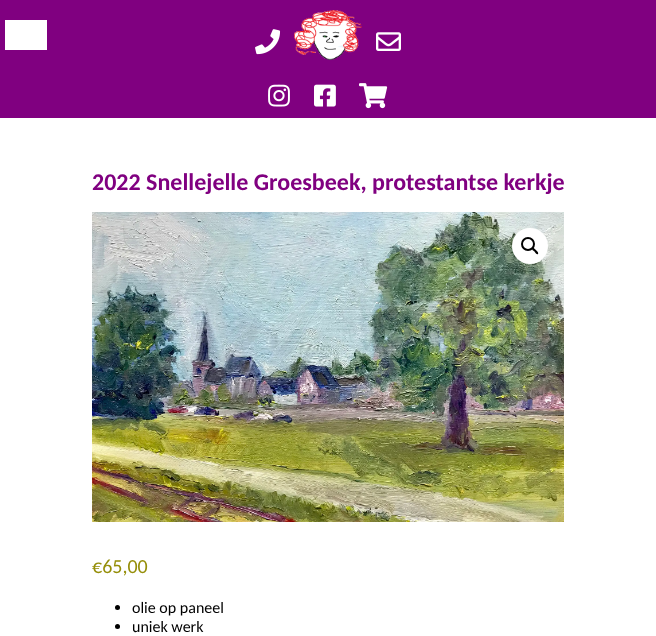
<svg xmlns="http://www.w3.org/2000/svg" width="656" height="636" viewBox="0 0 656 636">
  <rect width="100%" height="100%" fill="#800080"/>
  <path d="M5 20h42v30H5z" fill="#fff"/>
  <image x="255" y="29" width="26" height="26" href="img/1.png"/>
  <image x="294" y="10" width="68" height="50" href="img/2.png"/>
  <image x="376" y="32" width="25" height="19" href="img/3.png"/>
  <image x="268" y="84" width="22" height="23" href="img/4.png"/>
  <image x="314" y="84" width="22" height="23" href="img/5.png"/>
  <image x="359" y="83" width="29" height="26" href="img/6.png"/>
  <path d="M0 118h656v518H0z" fill="#fff"/>
  <image x="92" y="212" width="472" height="310" href="img/7.png"/>
  <circle cx="530" cy="246" r="18" fill="#fff"/>
  <circle cx="528" cy="244" r="6" fill="none" stroke="#000" stroke-width="2"/>
  <path d="M532.5 248C533.5 247 535 249.5 536 250C536.5 251 539 252.5 538 254C537 255 535 252.5 534.5 251.5C534 251 531 249.5 532.5 248Z" fill="#000"/>
  <circle cx="117.5" cy="607.5" r="2.5" fill="#000"/>
  <circle cx="117.5" cy="626.5" r="2.5" fill="#000"/>
  <text x="92" y="190" font-family="Carlito" font-size="24" font-weight="bold" fill="#800080">2022 Snellejelle Groesbeek, protestantse kerkje</text>
  <text x="92" y="573" font-family="Carlito" font-size="20" fill="#958e09">€65,00</text>
  <g font-family="Carlito" font-size="16" fill="#000">
    <text x="132" y="613">olie op paneel</text>
    <text x="132" y="632">uniek werk</text>
  </g>
</svg>
